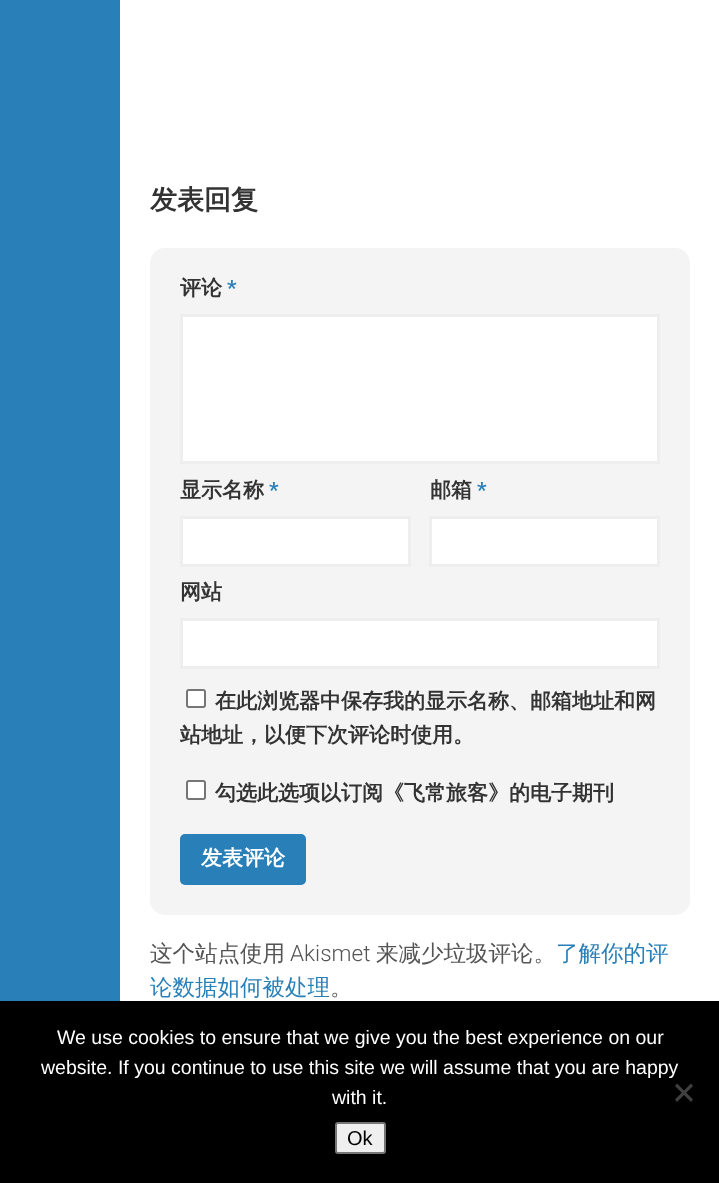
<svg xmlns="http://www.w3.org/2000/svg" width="719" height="1183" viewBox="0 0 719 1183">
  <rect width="100%" height="100%" fill="#fff"/>
  <path d="M0 0h120v1001H0z" fill="#2980b9"/>
  <rect x="150" y="248" width="540" height="667" rx="15" fill="#f4f4f4"/>
  <path d="M181.5 315.5h477v147H181.5z" fill="#fff" stroke="#eee" stroke-width="3"/>
  <path d="M181.5 517.5h228v48H181.5z" fill="#fff" stroke="#eee" stroke-width="3"/>
  <path d="M430.5 517.5h228v48H430.5z" fill="#fff" stroke="#eee" stroke-width="3"/>
  <path d="M181.5 619.5h477v48H181.5z" fill="#fff" stroke="#eee" stroke-width="3"/>
  <rect x="187" y="690" width="18" height="17" rx="2" fill="#fff" stroke="#767676" stroke-width="2"/>
  <rect x="187" y="781" width="18" height="18" rx="2" fill="#fff" stroke="#767676" stroke-width="2"/>
  <rect x="180" y="834" width="126" height="51" rx="5" fill="#2980b9"/>
  <path d="M0 1001h719v182H0z" fill="#000"/>
  <path d="M691 1083.5L693 1086L677 1102L675 1099.5Z" fill="#404040"/>
  <path d="M675 1086L677 1083.5L693 1099.5L691 1102Z" fill="#404040"/>
  <rect x="336" y="1123" width="49" height="30" rx="2" fill="#efefef" stroke="#767676" stroke-width="2"/>
  <text x="150" y="209" font-family="WenQuanYi Zen Hei" font-size="27" font-weight="bold" fill="#333">发表回复</text>
  <text x="180" y="295" font-family="WenQuanYi Zen Hei" font-size="21" font-weight="bold" fill="#333">评论</text>
  <text x="227" y="295" font-family="Roboto" font-size="21" font-weight="bold" fill="#2980b9">*</text>
  <text x="180" y="497" font-family="WenQuanYi Zen Hei" font-size="21" font-weight="bold" fill="#333">显示名称</text>
  <text x="269" y="497" font-family="Roboto" font-size="21" font-weight="bold" fill="#2980b9">*</text>
  <text x="430" y="497" font-family="WenQuanYi Zen Hei" font-size="21" font-weight="bold" fill="#333">邮箱</text>
  <text x="477" y="497" font-family="Roboto" font-size="21" font-weight="bold" fill="#2980b9">*</text>
  <g font-family="WenQuanYi Zen Hei" font-size="21" font-weight="bold" fill="#333">
    <text x="180" y="599">网站</text>
    <text x="215" y="708">在此浏览器中保存我的显示名称、邮箱地址和网</text>
    <text x="180" y="742">站地址，以便下次评论时使用。</text>
    <text x="215" y="800">勾选此选项以订阅《飞常旅客》的电子期刊</text>
  </g>
  <text x="201" y="865" font-family="WenQuanYi Zen Hei" font-size="21" font-weight="bold" fill="#fff">发表评论</text>
  <text x="150" y="961" font-family="WenQuanYi Zen Hei" font-size="22.5" font-weight="500" fill="#555">这个站点使用</text>
  <text x="290" y="961" font-family="Roboto" font-size="22.5" font-weight="300" fill="#555">Akismet</text>
  <text x="376" y="961" font-family="WenQuanYi Zen Hei" font-size="22.5" font-weight="500" fill="#555">来减少垃圾评论。</text>
  <g font-family="WenQuanYi Zen Hei" font-size="22.5" font-weight="500" fill="#2980b9">
    <text x="556" y="961">了解你的评</text>
    <text x="150" y="995">论数据如何被处理</text>
  </g>
  <text x="330" y="995" font-family="WenQuanYi Zen Hei" font-size="22.5" font-weight="500" fill="#555">。</text>
  <g font-family="Liberation Sans" font-size="19.5" fill="#fff">
    <text x="57" y="1044">We use cookies to ensure that we give you the best experience on our</text>
    <text x="41" y="1074">website. If you continue to use this site we will assume that you are happy</text>
    <text x="332" y="1104">with it.</text>
  </g>
  <text x="347" y="1145" font-family="Liberation Sans" font-size="20" fill="#000">Ok</text>
</svg>
